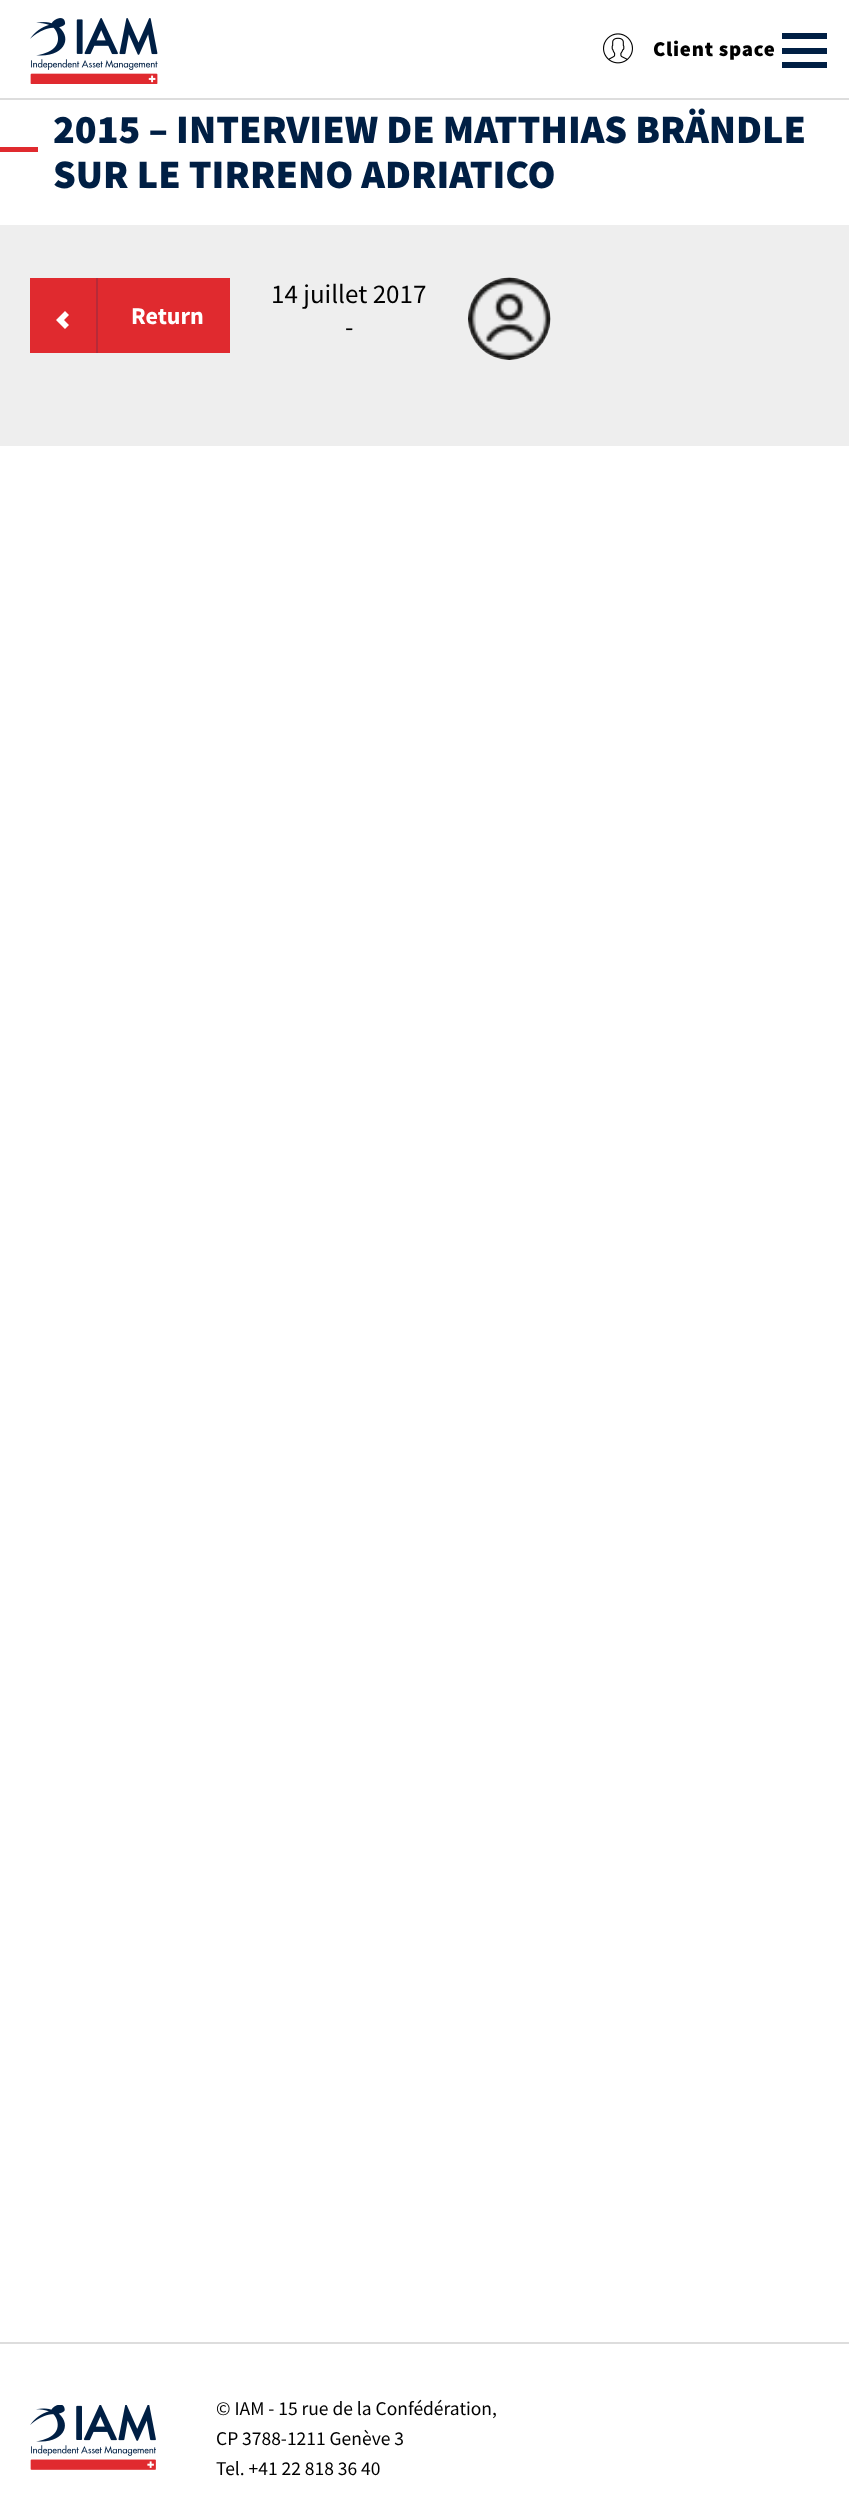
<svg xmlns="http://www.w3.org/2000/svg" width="849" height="2506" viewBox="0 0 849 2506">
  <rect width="100%" height="100%" fill="#fff"/>
  <path d="M0 98h849v2H0z" fill="#ddd"/>
  <image x="30" y="18" width="128" height="66" href="img/1.png"/>
  <image x="603" y="33" width="30" height="31" href="img/2.png"/>
  <path d="M782 33h45v6H782z" fill="#001f44"/>
  <path d="M782 48h45v6H782z" fill="#001f44"/>
  <path d="M782 62h45v6H782z" fill="#001f44"/>
  <path d="M0 147h38v5H0z" fill="#e02a2f"/>
  <path d="M0 225h849v221H0z" fill="#eee"/>
  <path d="M30 278h200v75H30z" fill="#e02a2f"/>
  <path d="M96 278h2v75H96z" fill="#b72a38"/>
  <path d="M56 320L65 329L69 325L64 320L69 315L65 311Z" fill="#fff"/>
  <image x="468" y="277" width="83" height="83" href="img/3.png"/>
  <path d="M0 2342h849v2H0z" fill="#ddd"/>
  <image x="30" y="2405" width="126" height="65" href="img/4.png"/>
  <text x="653" y="56" font-family="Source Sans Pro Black" font-size="21" font-weight="900" letter-spacing="0.75" fill="#000">Client space</text>
  <g font-family="Source Sans Pro Black" font-size="40.5" font-weight="900" fill="#001f44">
    <text x="53" y="143">2015 – INTERVIEW DE MATTHIAS BRÄNDLE</text>
    <text x="53" y="188">SUR LE TIRRENO ADRIATICO</text>
  </g>
  <text x="131" y="324" font-family="Source Sans Pro" font-size="24" font-weight="bold" fill="#fff">Return</text>
  <g font-family="Source Sans Pro" font-size="27" fill="#000">
    <text x="271" y="303">14 juillet 2017</text>
    <text x="345" y="336">-</text>
  </g>
  <g font-family="Source Sans Pro" font-size="19.5" fill="#000">
    <text x="216" y="2415">© IAM - 15 rue de la Confédération,</text>
    <text x="216" y="2445">CP 3788-1211 Genève 3</text>
    <text x="216" y="2475">Tel. +41 22 818 36 40</text>
  </g>
</svg>
